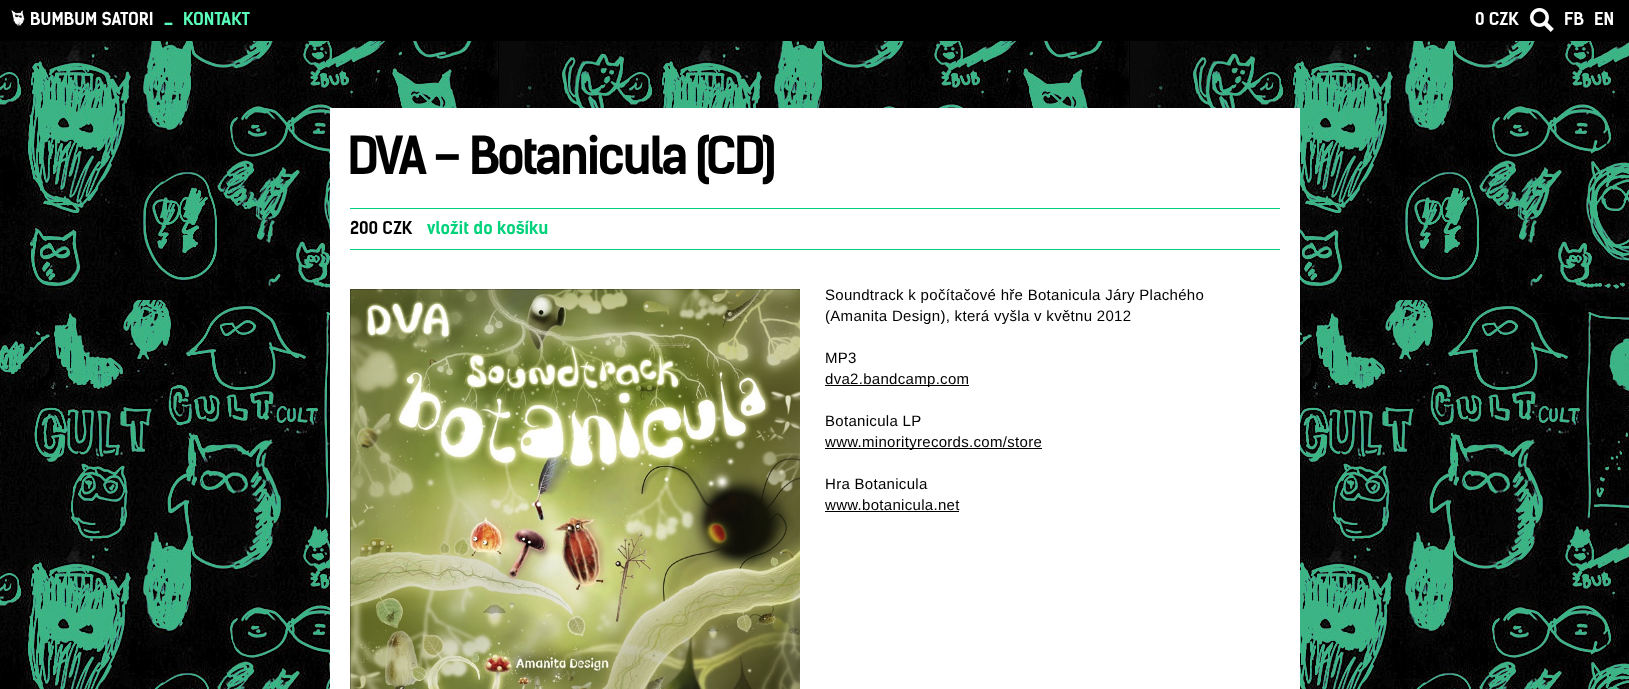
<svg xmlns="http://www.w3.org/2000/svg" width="1629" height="689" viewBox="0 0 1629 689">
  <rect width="100%" height="100%" fill="#fff"/>
  <image x="0" y="41" width="1629" height="648" href="img/1.png"/>
  <path d="M0 0h1629v41H0z" fill="#000"/>
  <image x="11" y="10" width="14" height="16" href="img/2.png"/>
  <image x="1530" y="8" width="24" height="24" href="img/3.png"/>
  <path d="M330 108h970v581H330z" fill="#fff"/>
  <path d="M350 208h930v1H350z" fill="#00d17b"/>
  <path d="M350 249h930v1H350z" fill="#00d17b"/>
  <image x="350" y="289" width="450" height="400" href="img/4.png"/>
  <path d="M825 385h144v1H825z" fill="#000"/>
  <path d="M825 448h217v1H825z" fill="#000"/>
  <path d="M825 511h134v1H825z" fill="#000"/>
  <text x="30" y="25" font-family="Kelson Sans" font-size="17" font-weight="bold" fill="#fff">BUMBUM SATORI</text>
  <g font-family="Kelson Sans" font-size="17" font-weight="bold" fill="#5afeba">
    <text x="164" y="25">_</text>
    <text x="183" y="25">KONTAKT</text>
  </g>
  <g font-family="Kelson Sans" font-size="17" font-weight="bold" fill="#fff">
    <text x="1475" y="25">0 CZK</text>
    <text x="1564" y="25">FB</text>
    <text x="1594" y="25">EN</text>
  </g>
  <text x="347" y="174" font-family="Kelson Sans" font-size="50" font-weight="bold" letter-spacing="-3" fill="#000">DVA – Botanicula (CD)</text>
  <text x="350" y="234" font-family="Kelson Sans" font-size="17" font-weight="bold" fill="#000">200 CZK</text>
  <text x="427" y="234" font-family="Kelson Sans" font-size="17" font-weight="bold" fill="#00d17b">vložit do košíku</text>
  <g font-family="Liberation Sans" font-size="15" letter-spacing="0.3" fill="#000">
    <text x="825" y="300">Soundtrack k počítačové hře Botanicula Járy Plachého</text>
    <text x="825" y="321">(Amanita Design), která vyšla v květnu 2012</text>
    <text x="825" y="363">MP3</text>
    <text x="825" y="384">dva2.bandcamp.com</text>
    <text x="825" y="426">Botanicula LP</text>
    <text x="825" y="447">www.minorityrecords.com/store</text>
    <text x="825" y="489">Hra Botanicula</text>
    <text x="825" y="510">www.botanicula.net</text>
  </g>
</svg>
